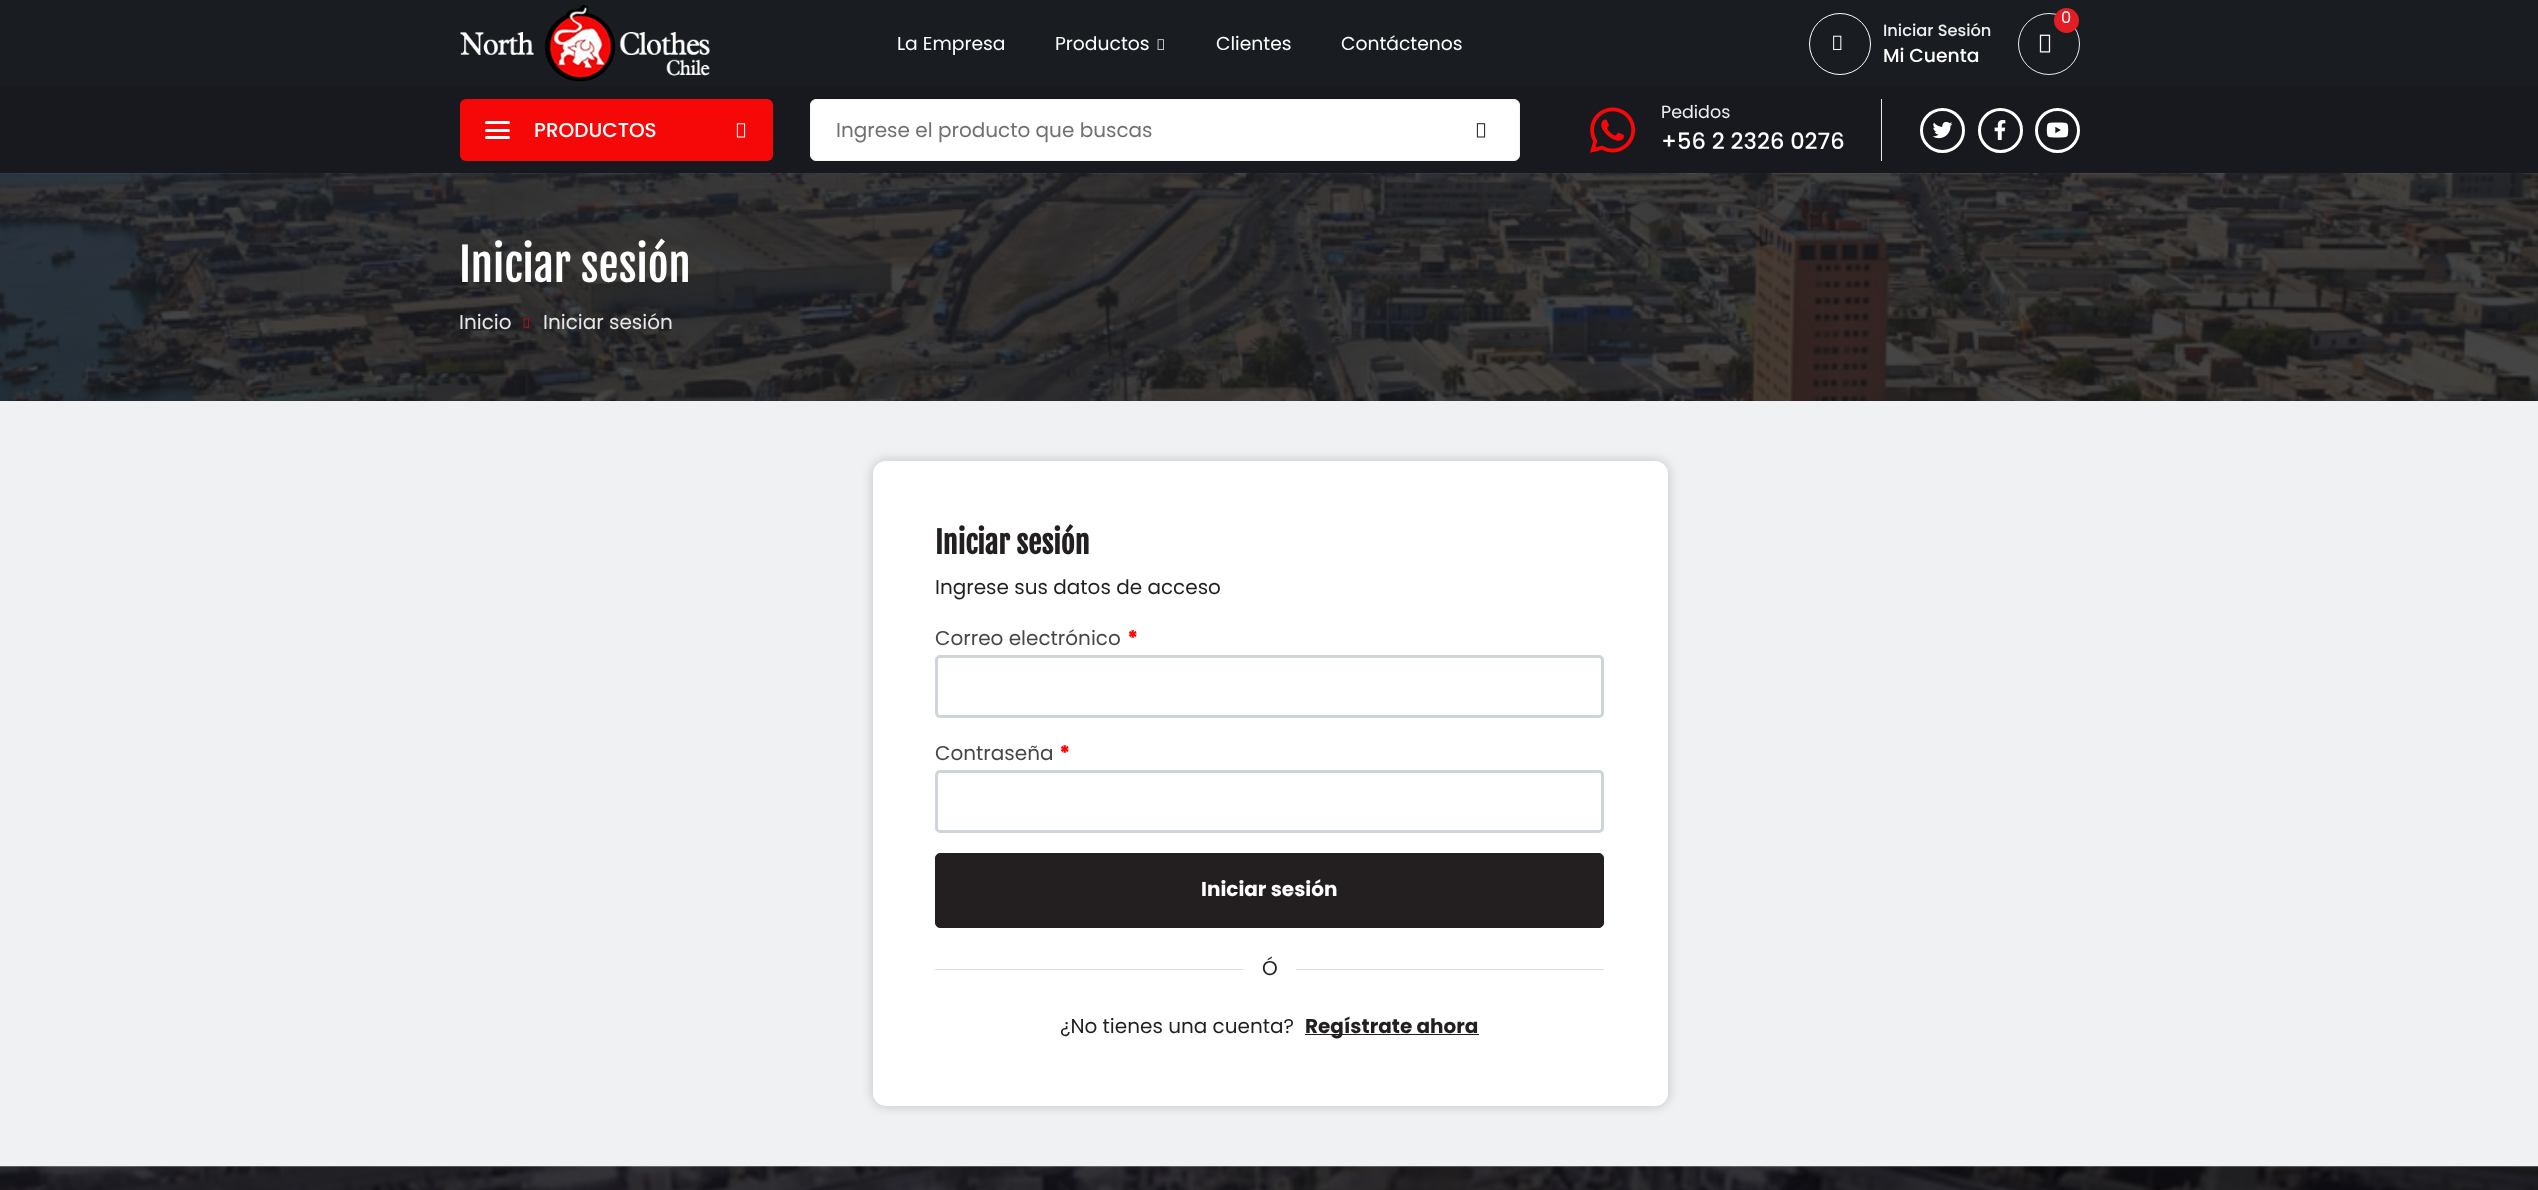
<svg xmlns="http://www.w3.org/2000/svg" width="2538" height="1190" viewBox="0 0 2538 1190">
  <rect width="100%" height="100%" fill="#fff"/>
  <path d="M0 0h2538v86H0z" fill="#191d22"/>
  <image x="460" y="5" width="250" height="77" href="img/1.png"/>
  <image x="1157" y="39" width="7" height="11" href="img/2.png"/>
  <circle cx="2049" cy="44" r="30.5" fill="none" stroke="#eaebee"/>
  <circle cx="2066.5" cy="20.5" r="12.5" fill="#e21e24"/>
  <image x="2039" y="34" width="12" height="19" href="img/3.png"/>
  <circle cx="1840" cy="44" r="30.5" fill="none" stroke="#fff"/>
  <image x="1833" y="35" width="9" height="15" href="img/4.png"/>
  <path d="M0 86h2538v88H0z" fill="#17191f"/>
  <rect x="460" y="99" width="313" height="62" rx="6" fill="#f60808"/>
  <rect x="485" y="121" width="25" height="3" rx="1.5" fill="#fff"/>
  <rect x="485" y="129" width="25" height="3" rx="1.5" fill="#fff"/>
  <rect x="485" y="136" width="25" height="3" rx="1.5" fill="#fff"/>
  <image x="736" y="123" width="10" height="15" href="img/5.png"/>
  <rect x="810.5" y="99.5" width="709" height="61" rx="5.5" fill="#fff" stroke="#f6f6f6"/>
  <image x="1476" y="123" width="10" height="15" href="img/6.png"/>
  <image x="1590" y="107" width="46" height="46" href="img/7.png"/>
  <path d="M1881 99h1v62H1881z" fill="#eaebee"/>
  <circle cx="1942.5" cy="130.5" r="21" fill="none" stroke="#fff" stroke-width="3"/>
  <image x="1932" y="121" width="21" height="18" href="img/8.png"/>
  <circle cx="2000.5" cy="130.5" r="21" fill="none" stroke="#fff" stroke-width="3"/>
  <image x="1994" y="120" width="12" height="20" href="img/9.png"/>
  <circle cx="2057.5" cy="130.5" r="21" fill="none" stroke="#fff" stroke-width="3"/>
  <image x="2046" y="122" width="23" height="16" href="img/10.png"/>
  <image x="0" y="173" width="2538" height="228" href="img/11.png"/>
  <image x="523" y="318" width="6" height="10" href="img/12.png"/>
  <path d="M0 401h2538v765H0z" fill="#f0f1f3"/>
  <rect x="873" y="461" width="795" height="645" rx="13" fill="#00000033" filter="blur(6px)"/>
  <rect x="873" y="461" width="795" height="645" rx="13" fill="#fff"/>
  <rect x="936.5" y="656.5" width="666" height="60" rx="3.5" fill="none" stroke="#ced4da" stroke-width="3"/>
  <rect x="936.5" y="771.5" width="666" height="60" rx="3.5" fill="none" stroke="#ced4da" stroke-width="3"/>
  <rect x="935.5" y="853.5" width="668" height="74" rx="4.5" fill="#231f20" stroke="#231f20"/>
  <path d="M935 969h669v1H935z" fill="#ddd"/>
  <path d="M1243 969h53v1H1243z" fill="#fff"/>
  <path d="M1305 1034h174v1H1305z" fill="#231f20"/>
  <image x="0" y="1166" width="2538" height="24" href="img/13.png"/>
  <g font-family="Poppins" font-size="18.75" fill="#fff">
    <text x="897" y="50">La Empresa</text>
    <text x="1055" y="50">Productos</text>
    <text x="1216" y="50">Clientes</text>
    <text x="1341" y="50">Contáctenos</text>
  </g>
  <text x="2061" y="23" font-family="Poppins" font-size="16.25" fill="#fff">0</text>
  <text x="1883" y="36" font-family="Poppins" font-size="16.25" font-weight="500" fill="#eee">Iniciar Sesión</text>
  <text x="1883" y="62" font-family="Poppins" font-size="18.75" font-weight="500" fill="#fff">Mi Cuenta</text>
  <text x="534" y="137" font-family="Poppins" font-size="20" font-weight="500" fill="#fff">PRODUCTOS</text>
  <text x="836" y="137" font-family="Poppins" font-size="20" fill="#707070">Ingrese el producto que buscas</text>
  <text x="1661" y="118" font-family="Poppins" font-size="17.5" fill="#eee">Pedidos</text>
  <text x="1661" y="149" font-family="Poppins" font-size="22.5" font-weight="500" fill="#fff">+56 2 2326 0276</text>
  <text x="459" y="282" font-family="Fjalla One" font-size="45" fill="#fff">Iniciar sesión</text>
  <g font-family="Poppins" font-size="20" fill="#e7e7e7">
    <text x="459" y="329">Inicio</text>
    <text x="543" y="329">Iniciar sesión</text>
  </g>
  <text x="935" y="554" font-family="Fjalla One" font-size="30" font-weight="bold" fill="#231f20">Iniciar sesión</text>
  <text x="935" y="594" font-family="Poppins" font-size="20" fill="#231f20">Ingrese sus datos de acceso</text>
  <text x="935" y="645" font-family="Poppins" font-size="20" fill="#474747">Correo electrónico</text>
  <text x="1127" y="645" font-family="Poppins" font-size="20" font-weight="900" fill="#f00">*</text>
  <text x="935" y="760" font-family="Poppins" font-size="20" fill="#474747">Contraseña</text>
  <text x="1059" y="760" font-family="Poppins" font-size="20" font-weight="900" fill="#f00">*</text>
  <text x="1201" y="896" font-family="Poppins" font-size="20" font-weight="bold" fill="#fff">Iniciar sesión</text>
  <g font-family="Poppins" font-size="20" fill="#231f20">
    <text x="1262" y="975">Ó</text>
    <text x="1060" y="1033">¿No tienes una cuenta?</text>
  </g>
  <text x="1305" y="1033" font-family="Poppins" font-size="20" font-weight="bold" fill="#231f20">Regístrate ahora</text>
</svg>
